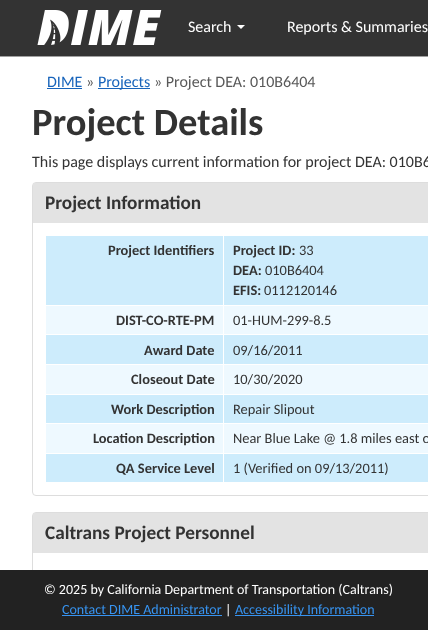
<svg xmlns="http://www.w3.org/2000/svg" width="428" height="630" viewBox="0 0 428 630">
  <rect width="100%" height="100%" fill="#fff"/>
  <path d="M0 0h428v56H0z" fill="#333"/>
  <path d="M0 56h428v1H0z" fill="#a0a0a0"/>
  <image x="37" y="10" width="125" height="35" href="img/1.png"/>
  <path d="M237 25H245L241 29Z" fill="#fff"/>
  <path d="M47 88h35v1H47z" fill="#1864bb"/>
  <path d="M98 88h52v1H98z" fill="#1864bb"/>
  <rect x="32.5" y="182.5" width="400" height="313" rx="3.5" fill="none" stroke="#ddd"/>
  <path d="M33 183h395v40H33z" fill="#e3e3e3"/>
  <path d="M46 236h382v69H46z" fill="#cdecfc"/>
  <path d="M46 306h382v28H46z" fill="#eef9ff"/>
  <path d="M46 335h382v29H46z" fill="#cdecfc"/>
  <path d="M46 365h382v29H46z" fill="#eef9ff"/>
  <path d="M46 395h382v28H46z" fill="#cdecfc"/>
  <path d="M46 424h382v29H46z" fill="#eef9ff"/>
  <path d="M46 454h382v28H46z" fill="#cdecfc"/>
  <path d="M223 235h1v248H223z" fill="#fff"/>
  <rect x="32.5" y="512.5" width="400" height="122" rx="3.5" fill="none" stroke="#ddd"/>
  <path d="M33 513h395v40H33z" fill="#e3e3e3"/>
  <path d="M0 570h428v60H0z" fill="#222"/>
  <path d="M62 615h160v1H62z" fill="#3794f1"/>
  <path d="M235 615h139v1H235z" fill="#3794f1"/>
  <g font-family="Carlito" font-size="16" fill="#fff">
    <text x="188" y="32">Search</text>
    <text x="287" y="32">Reports &amp; Summaries</text>
  </g>
  <text x="47" y="87" font-family="Carlito" font-size="16" fill="#1864bb">DIME</text>
  <text x="86" y="87" font-family="Carlito" font-size="16" fill="#595959">»</text>
  <text x="98" y="87" font-family="Carlito" font-size="16" fill="#1864bb">Projects</text>
  <text x="154" y="87" font-family="Carlito" font-size="16" fill="#595959">» Project DEA: 010B6404</text>
  <text x="32" y="135" font-family="Carlito" font-size="38.5" font-weight="bold" fill="#333">Project Details</text>
  <text x="32" y="167" font-family="Carlito" font-size="16" fill="#333">This page displays current information for project DEA: 010B6</text>
  <text x="45" y="209" font-family="Carlito" font-size="19.25" font-weight="bold" fill="#333">Project Information</text>
  <g font-family="Carlito" font-size="14.4" font-weight="bold" fill="#333">
    <text x="108" y="255">Project Identifiers</text>
    <text x="233" y="255">Project ID:</text>
  </g>
  <text x="299" y="255" font-family="Carlito" font-size="14.4" fill="#333">33</text>
  <text x="233" y="275" font-family="Carlito" font-size="14.4" font-weight="bold" fill="#333">DEA:</text>
  <text x="265" y="275" font-family="Carlito" font-size="14.4" fill="#333">010B6404</text>
  <text x="233" y="295" font-family="Carlito" font-size="14.4" font-weight="bold" fill="#333">EFIS:</text>
  <text x="264" y="295" font-family="Carlito" font-size="14.4" fill="#333">0112120146</text>
  <text x="116" y="325" font-family="Carlito" font-size="14.4" font-weight="bold" fill="#333">DIST-CO-RTE-PM</text>
  <text x="233" y="325" font-family="Carlito" font-size="14.4" fill="#333">01-HUM-299-8.5</text>
  <text x="144" y="355" font-family="Carlito" font-size="14.4" font-weight="bold" fill="#333">Award Date</text>
  <text x="233" y="355" font-family="Carlito" font-size="14.4" fill="#333">09/16/2011</text>
  <text x="131" y="384" font-family="Carlito" font-size="14.4" font-weight="bold" fill="#333">Closeout Date</text>
  <text x="233" y="384" font-family="Carlito" font-size="14.4" fill="#333">10/30/2020</text>
  <text x="111" y="414" font-family="Carlito" font-size="14.4" font-weight="bold" fill="#333">Work Description</text>
  <text x="233" y="414" font-family="Carlito" font-size="14.4" fill="#333">Repair Slipout</text>
  <text x="93" y="443" font-family="Carlito" font-size="14.4" font-weight="bold" fill="#333">Location Description</text>
  <text x="233" y="443" font-family="Carlito" font-size="14.4" fill="#333">Near Blue Lake @ 1.8 miles east o</text>
  <text x="116" y="473" font-family="Carlito" font-size="14.4" font-weight="bold" fill="#333">QA Service Level</text>
  <text x="233" y="473" font-family="Carlito" font-size="14.4" fill="#333">1 (Verified on 09/13/2011)</text>
  <text x="45" y="539" font-family="Carlito" font-size="19.25" font-weight="bold" fill="#333">Caltrans Project Personnel</text>
  <text x="44" y="594" font-family="Carlito" font-size="14" fill="#fff">© 2025 by California Department of Transportation (Caltrans)</text>
  <text x="62" y="614" font-family="Carlito" font-size="14" fill="#3794f1">Contact DIME Administrator</text>
  <text x="225" y="614" font-family="Carlito" font-size="14" fill="#fff">|</text>
  <text x="235" y="614" font-family="Carlito" font-size="14" fill="#3794f1">Accessibility Information</text>
</svg>
